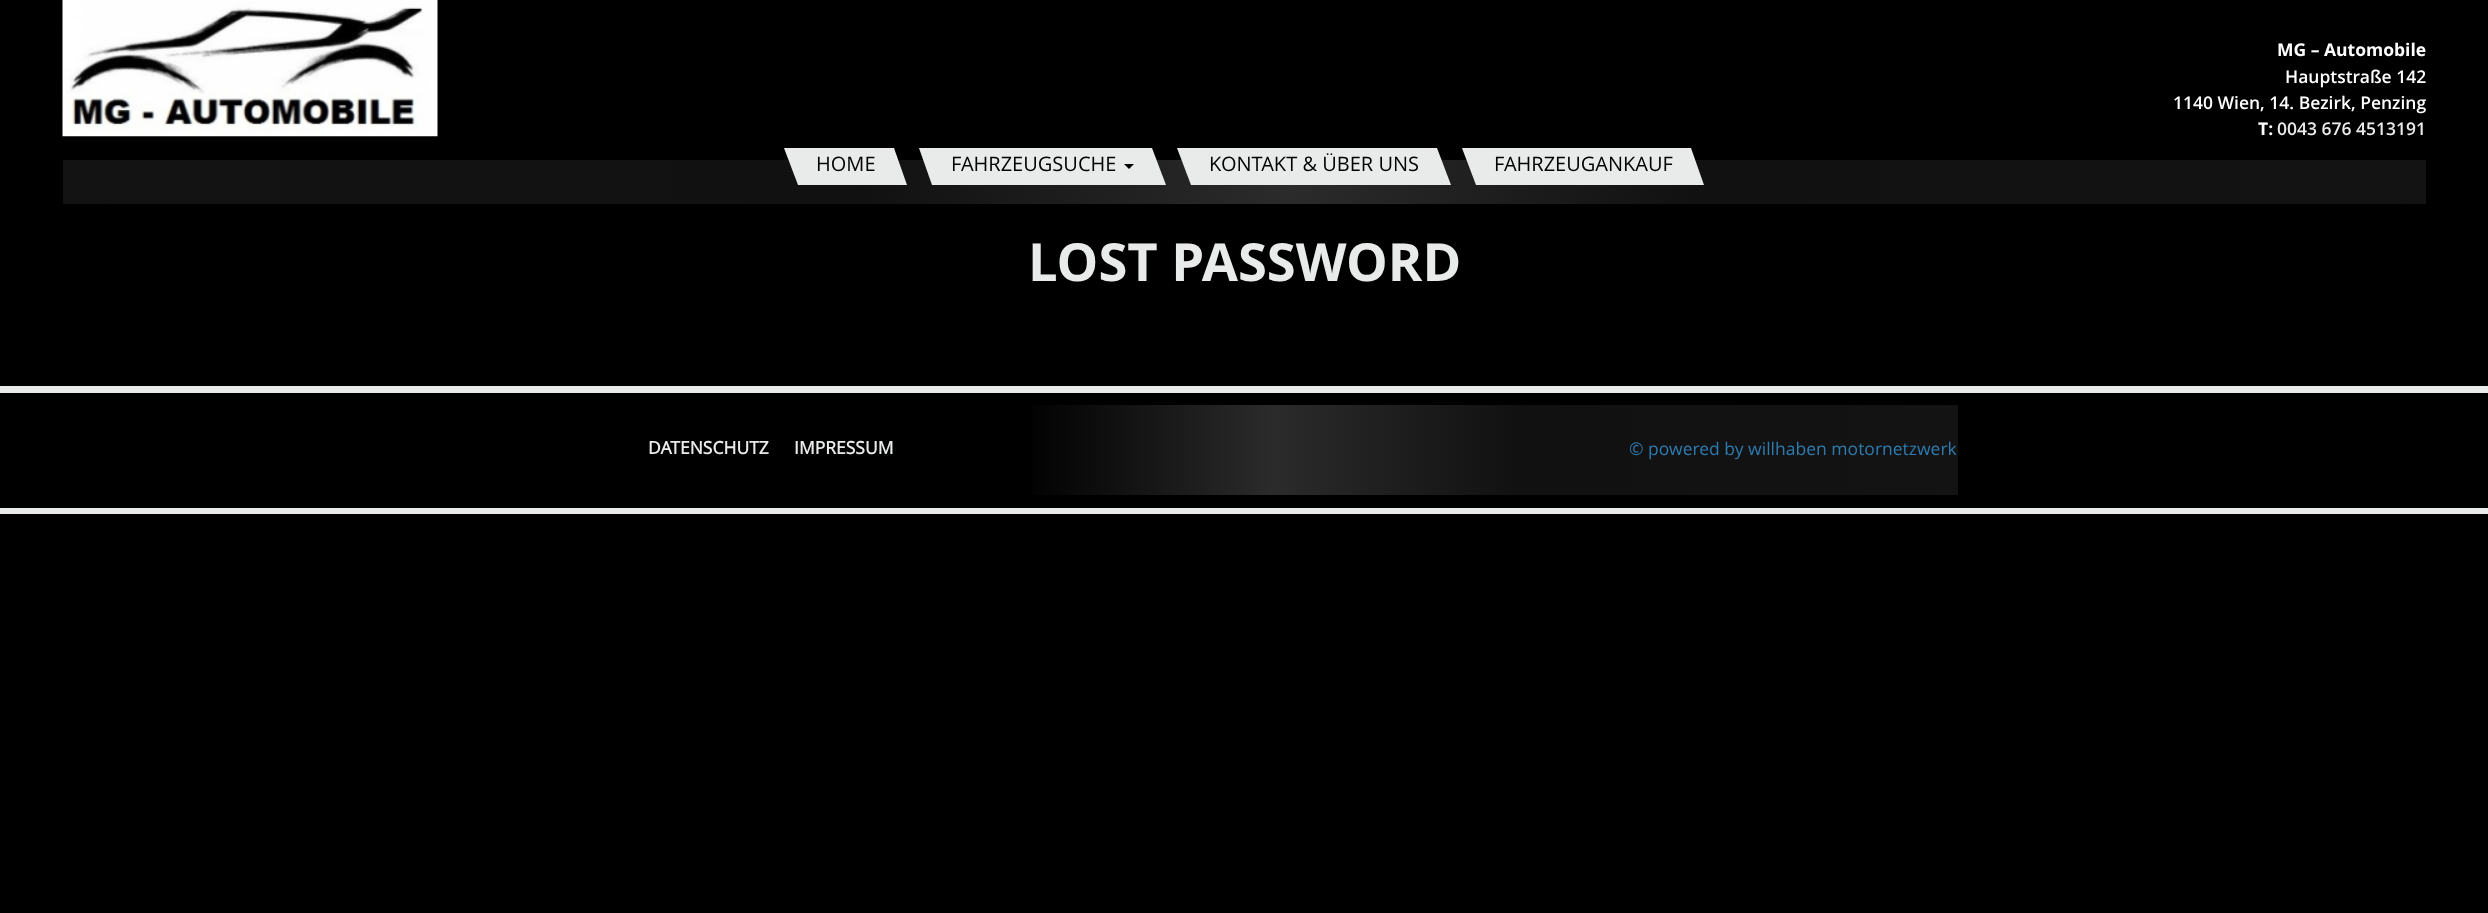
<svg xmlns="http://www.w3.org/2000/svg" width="2488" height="913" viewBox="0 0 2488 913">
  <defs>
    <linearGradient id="g1" gradientUnits="userSpaceOnUse" x1="63" y1="182" x2="2426" y2="182"><stop offset="0.01" stop-color="#131313"/><stop offset="0.34" stop-color="#111"/><stop offset="0.52" stop-color="#2b2b2b"/><stop offset="0.69" stop-color="#111"/><stop offset="1" stop-color="#131313"/></linearGradient>
    <linearGradient id="g2" gradientUnits="userSpaceOnUse" x1="533" y1="450" x2="1958" y2="450"><stop offset="0.01" stop-color="#000"/><stop offset="0.34" stop-color="#000"/><stop offset="0.52" stop-color="#2b2b2b"/><stop offset="0.69" stop-color="#111"/><stop offset="1" stop-color="#131313"/></linearGradient>
  </defs>
  <rect width="100%" height="100%" fill="#000"/>
  <image x="62" y="0" width="376" height="137" href="img/1.png"/>
  <path d="M63 160h2363v44H63z" fill="url(#g1)"/>
  <path d="M784 148H894L907 185H798Z" fill="#e9eaea"/>
  <path d="M919 148H1152L1166 185H932Z" fill="#e9eaea"/>
  <path d="M1124 164H1134L1129 169Z" fill="#000"/>
  <path d="M1177 148H1437L1451 185H1191Z" fill="#e9eaea"/>
  <path d="M1462 148H1691L1704 185H1476Z" fill="#e9eaea"/>
  <path d="M0 386h2488v7H0z" fill="#e9eaea"/>
  <path d="M0 508h2488v6H0z" fill="#e9eaea"/>
  <path d="M1032 405h926v90H1032z" fill="url(#g2)"/>
  <text x="2277" y="56" font-family="Open Sans" font-size="17.5" font-weight="bold" fill="#fff">MG – Automobile</text>
  <g font-family="Open Sans" font-size="17.5" font-weight="600" fill="#fff">
    <text x="2285" y="83">Hauptstraße 142</text>
    <text x="2173" y="109">1140 Wien, 14. Bezirk, Penzing</text>
  </g>
  <text x="2258" y="135" font-family="Open Sans" font-size="17.5" font-weight="bold" fill="#fff">T:</text>
  <text x="2277" y="135" font-family="Open Sans" font-size="17.5" font-weight="600" fill="#e9eaea">0043 676 4513191</text>
  <g font-family="Open Sans" font-size="20" fill="#000">
    <text x="816" y="171">HOME</text>
    <text x="951" y="171">FAHRZEUGSUCHE</text>
    <text x="1209" y="171">KONTAKT &amp; ÜBER UNS</text>
    <text x="1494" y="171">FAHRZEUGANKAUF</text>
  </g>
  <text x="1028" y="281" font-family="Open Sans" font-size="52.5" font-weight="bold" fill="#e9eaea">LOST PASSWORD</text>
  <g font-family="'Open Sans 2'" font-size="17.5" font-weight="bold" fill="#e9eaea">
    <text x="648" y="454">DATENSCHUTZ</text>
    <text x="794" y="454">IMPRESSUM</text>
  </g>
  <text x="1629" y="455" font-family="Open Sans" font-size="17.5" fill="#2e7bb0">© powered by willhaben motornetzwerk</text>
</svg>
